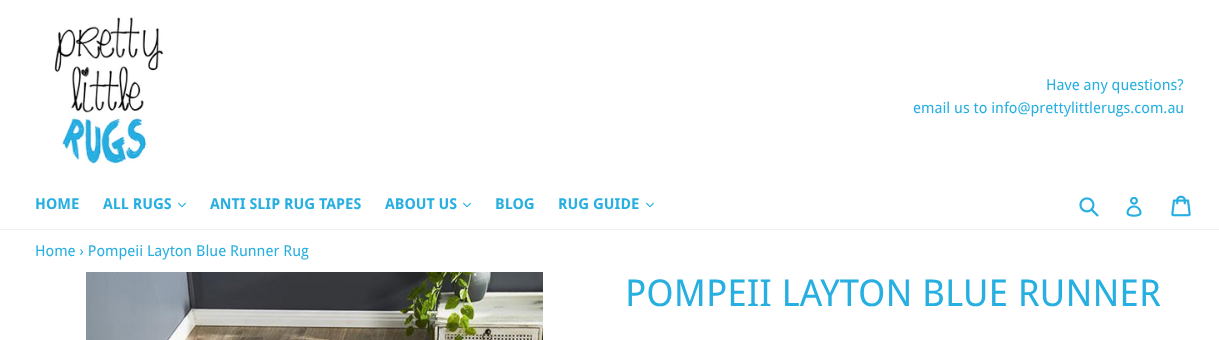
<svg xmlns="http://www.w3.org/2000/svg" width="1219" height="340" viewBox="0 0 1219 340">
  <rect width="100%" height="100%" fill="#fff"/>
  <path d="M0 229h1219v1H0z" fill="#f0f0f0"/>
  <image x="54" y="17" width="110" height="151" href="img/1.png"/>
  <image x="178" y="202" width="8" height="6" href="img/2.png"/>
  <image x="463" y="202" width="8" height="6" href="img/2.png"/>
  <image x="646" y="202" width="8" height="6" href="img/2.png"/>
  <image x="1079" y="197" width="20" height="20" href="img/3.png"/>
  <image x="1126" y="197" width="16" height="20" href="img/4.png"/>
  <image x="1171" y="195" width="20" height="22" href="img/5.png"/>
  <image x="86" y="272" width="457" height="68" href="img/6.png"/>
  <g font-family="Droid Sans" font-size="15" fill="#27afe1">
    <text x="1046" y="90">Have any questions?</text>
    <text x="913" y="113">email us to info@prettylittlerugs.com.au</text>
  </g>
  <g font-family="Droid Sans" font-size="15" font-weight="bold" fill="#27afe1">
    <text x="35" y="209">HOME</text>
    <text x="103" y="209">ALL RUGS</text>
    <text x="210" y="209">ANTI SLIP RUG TAPES</text>
    <text x="385" y="209">ABOUT US</text>
    <text x="495" y="209">BLOG</text>
    <text x="558" y="209">RUG GUIDE</text>
  </g>
  <text x="35" y="256" font-family="Droid Sans" font-size="15" fill="#27afe1">Home › Pompeii Layton Blue Runner Rug</text>
  <text x="625" y="306" font-family="Droid Sans" font-size="37" fill="#27afe1">POMPEII LAYTON BLUE RUNNER</text>
</svg>
